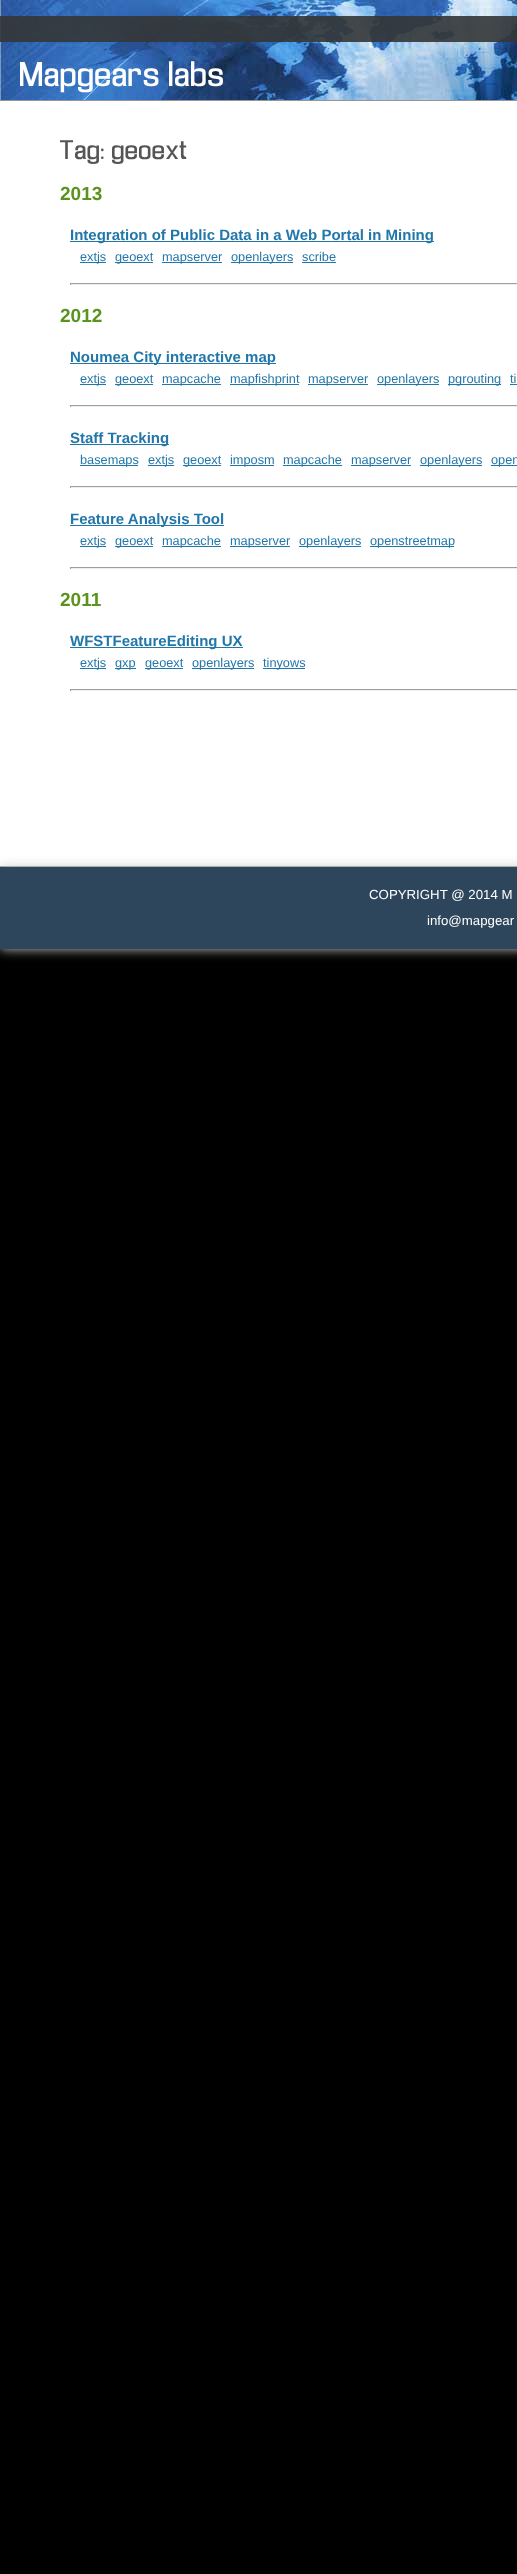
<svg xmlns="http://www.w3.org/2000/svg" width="517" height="2574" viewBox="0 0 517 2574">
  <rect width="100%" height="100%" fill="#000"/>
  <path d="M0 101h517v765H0z" fill="#fff"/>
  <image x="0" y="0" width="517" height="100" href="img/1.png"/>
  <path d="M0 16h517v26H0z" fill="#343636e6"/>
  <path d="M0 100h517v1H0z" fill="#949599"/>
  <path d="M0 866h517v1H0z" fill="#949599"/>
  <path d="M70 241h364v1H70z" fill="#27a"/>
  <path d="M80 262h26v1H80z" fill="#27a"/>
  <path d="M115 262h38v1H115z" fill="#27a"/>
  <path d="M162 262h60v1H162z" fill="#27a"/>
  <path d="M231 262h62v1H231z" fill="#27a"/>
  <path d="M302 262h34v1H302z" fill="#27a"/>
  <path d="M70 283h447v1H70z" fill="#9f9f9f"/>
  <path d="M70 284h447v1H70z" fill="#eee"/>
  <path d="M70 283h1v2H70z" fill="#9f9f9f"/>
  <path d="M70 363h206v1H70z" fill="#27a"/>
  <path d="M80 384h26v1H80z" fill="#27a"/>
  <path d="M115 384h38v1H115z" fill="#27a"/>
  <path d="M162 384h59v1H162z" fill="#27a"/>
  <path d="M230 384h69v1H230z" fill="#27a"/>
  <path d="M308 384h60v1H308z" fill="#27a"/>
  <path d="M377 384h62v1H377z" fill="#27a"/>
  <path d="M448 384h53v1H448z" fill="#27a"/>
  <path d="M510 384h7v1H510z" fill="#27a"/>
  <path d="M70 405h447v1H70z" fill="#9f9f9f"/>
  <path d="M70 406h447v1H70z" fill="#eee"/>
  <path d="M70 405h1v2H70z" fill="#9f9f9f"/>
  <path d="M70 444h99v1H70z" fill="#27a"/>
  <path d="M80 465h58v1H80z" fill="#27a"/>
  <path d="M148 465h26v1H148z" fill="#27a"/>
  <path d="M183 465h38v1H183z" fill="#27a"/>
  <path d="M230 465h44v1H230z" fill="#27a"/>
  <path d="M283 465h59v1H283z" fill="#27a"/>
  <path d="M351 465h60v1H351z" fill="#27a"/>
  <path d="M420 465h62v1H420z" fill="#27a"/>
  <path d="M491 465h26v1H491z" fill="#27a"/>
  <path d="M70 486h447v1H70z" fill="#9f9f9f"/>
  <path d="M70 487h447v1H70z" fill="#eee"/>
  <path d="M70 486h1v2H70z" fill="#9f9f9f"/>
  <path d="M70 525h154v1H70z" fill="#27a"/>
  <path d="M80 546h26v1H80z" fill="#27a"/>
  <path d="M115 546h38v1H115z" fill="#27a"/>
  <path d="M162 546h59v1H162z" fill="#27a"/>
  <path d="M230 546h60v1H230z" fill="#27a"/>
  <path d="M299 546h62v1H299z" fill="#27a"/>
  <path d="M370 546h84v1H370z" fill="#27a"/>
  <path d="M70 567h447v1H70z" fill="#9f9f9f"/>
  <path d="M70 568h447v1H70z" fill="#eee"/>
  <path d="M70 567h1v2H70z" fill="#9f9f9f"/>
  <path d="M70 647h173v1H70z" fill="#27a"/>
  <path d="M80 668h26v1H80z" fill="#27a"/>
  <path d="M115 668h21v1H115z" fill="#27a"/>
  <path d="M145 668h38v1H145z" fill="#27a"/>
  <path d="M192 668h62v1H192z" fill="#27a"/>
  <path d="M263 668h42v1H263z" fill="#27a"/>
  <path d="M70 689h447v1H70z" fill="#9f9f9f"/>
  <path d="M70 690h447v1H70z" fill="#eee"/>
  <path d="M70 689h1v2H70z" fill="#9f9f9f"/>
  <path d="M0 867h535v82H0z" fill="#ccc" filter="blur(6px)"/>
  <path d="M0 867h517v82H0z" fill="#2d465c"/>
  <text x="20" y="86" font-family="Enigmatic" font-size="32" fill="#fff">Mapgears labs</text>
  <text x="60" y="159" font-family="Enigmatic" font-size="25" fill="#555">Tag: geoext</text>
  <text x="60" y="200" font-family="Liberation Sans" font-size="19" font-weight="bold" fill="#5a931e">2013</text>
  <text x="70" y="240" font-family="Liberation Sans" font-size="15" font-weight="bold" fill="#27a">Integration of Public Data in a Web Portal in Mining</text>
  <g font-family="Liberation Sans" font-size="12.75" fill="#27a">
    <text x="80" y="261">extjs</text>
    <text x="115" y="261">geoext</text>
    <text x="162" y="261">mapserver</text>
    <text x="231" y="261">openlayers</text>
    <text x="302" y="261">scribe</text>
  </g>
  <text x="60" y="322" font-family="Liberation Sans" font-size="19" font-weight="bold" fill="#5a931e">2012</text>
  <text x="70" y="362" font-family="Liberation Sans" font-size="15" font-weight="bold" fill="#27a">Noumea City interactive map</text>
  <g font-family="Liberation Sans" font-size="12.75" fill="#27a">
    <text x="80" y="383">extjs</text>
    <text x="115" y="383">geoext</text>
    <text x="162" y="383">mapcache</text>
    <text x="230" y="383">mapfishprint</text>
    <text x="308" y="383">mapserver</text>
    <text x="377" y="383">openlayers</text>
    <text x="448" y="383">pgrouting</text>
    <text x="510" y="383">ti</text>
  </g>
  <text x="70" y="443" font-family="Liberation Sans" font-size="15" font-weight="bold" fill="#27a">Staff Tracking</text>
  <g font-family="Liberation Sans" font-size="12.75" fill="#27a">
    <text x="80" y="464">basemaps</text>
    <text x="148" y="464">extjs</text>
    <text x="183" y="464">geoext</text>
    <text x="230" y="464">imposm</text>
    <text x="283" y="464">mapcache</text>
    <text x="351" y="464">mapserver</text>
    <text x="420" y="464">openlayers</text>
    <text x="491" y="464">open</text>
  </g>
  <text x="70" y="524" font-family="Liberation Sans" font-size="15" font-weight="bold" fill="#27a">Feature Analysis Tool</text>
  <g font-family="Liberation Sans" font-size="12.75" fill="#27a">
    <text x="80" y="545">extjs</text>
    <text x="115" y="545">geoext</text>
    <text x="162" y="545">mapcache</text>
    <text x="230" y="545">mapserver</text>
    <text x="299" y="545">openlayers</text>
    <text x="370" y="545">openstreetmap</text>
  </g>
  <text x="60" y="606" font-family="Liberation Sans" font-size="19" font-weight="bold" fill="#5a931e">2011</text>
  <text x="70" y="646" font-family="Liberation Sans" font-size="15" font-weight="bold" fill="#27a">WFSTFeatureEditing UX</text>
  <g font-family="Liberation Sans" font-size="12.75" fill="#27a">
    <text x="80" y="667">extjs</text>
    <text x="115" y="667">gxp</text>
    <text x="145" y="667">geoext</text>
    <text x="192" y="667">openlayers</text>
    <text x="263" y="667">tinyows</text>
  </g>
  <g font-family="Liberation Sans" font-size="13.25" fill="#fff">
    <text x="369" y="899">COPYRIGHT @ 2014 M</text>
    <text x="427" y="925">info@mapgear</text>
  </g>
</svg>
